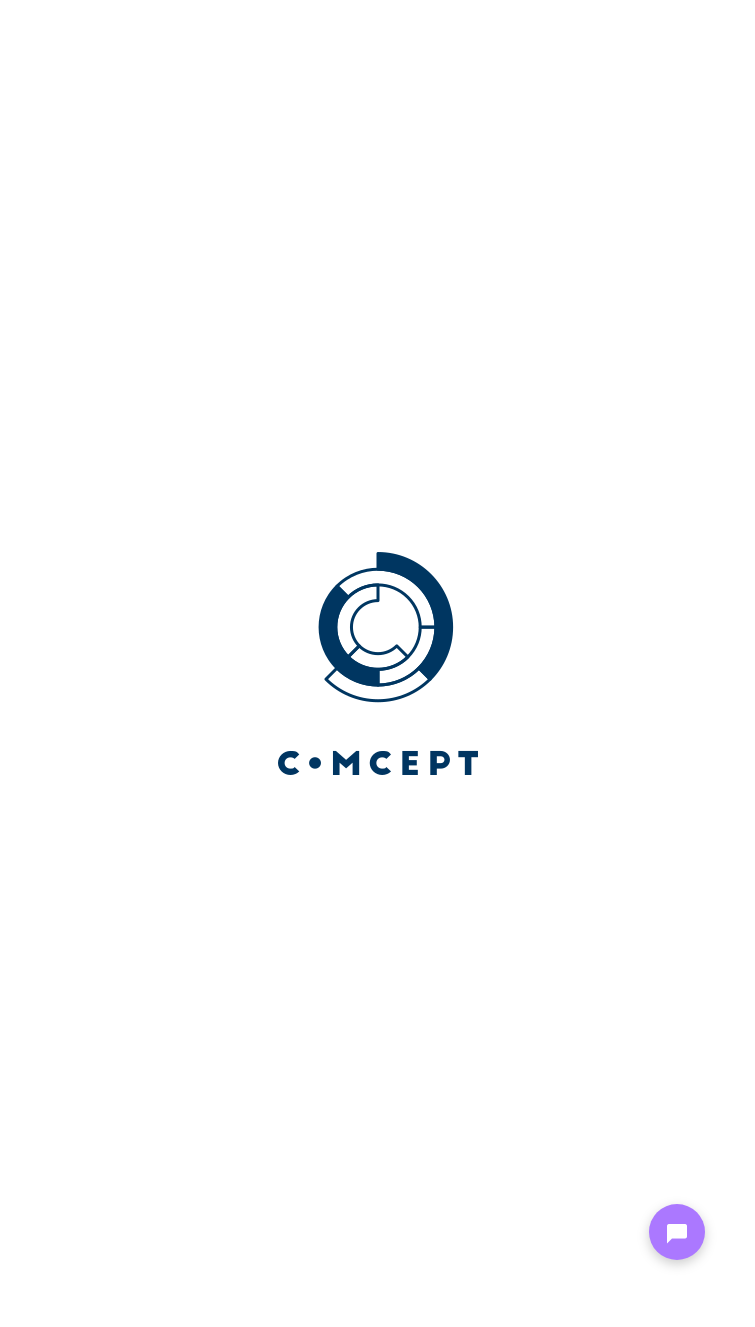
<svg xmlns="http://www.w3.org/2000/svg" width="755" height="1327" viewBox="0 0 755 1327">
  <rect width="100%" height="100%" fill="#fff"/>
  <image x="278" y="552" width="200" height="223" href="img/1.png"/>
  <rect x="649" y="1208" width="56" height="56" rx="28" fill="#00000033" filter="blur(6px)"/>
  <circle cx="677" cy="1232" r="28" fill="#ab78ff"/>
  <image x="667" y="1224" width="20" height="20" href="img/2.png"/>
</svg>
